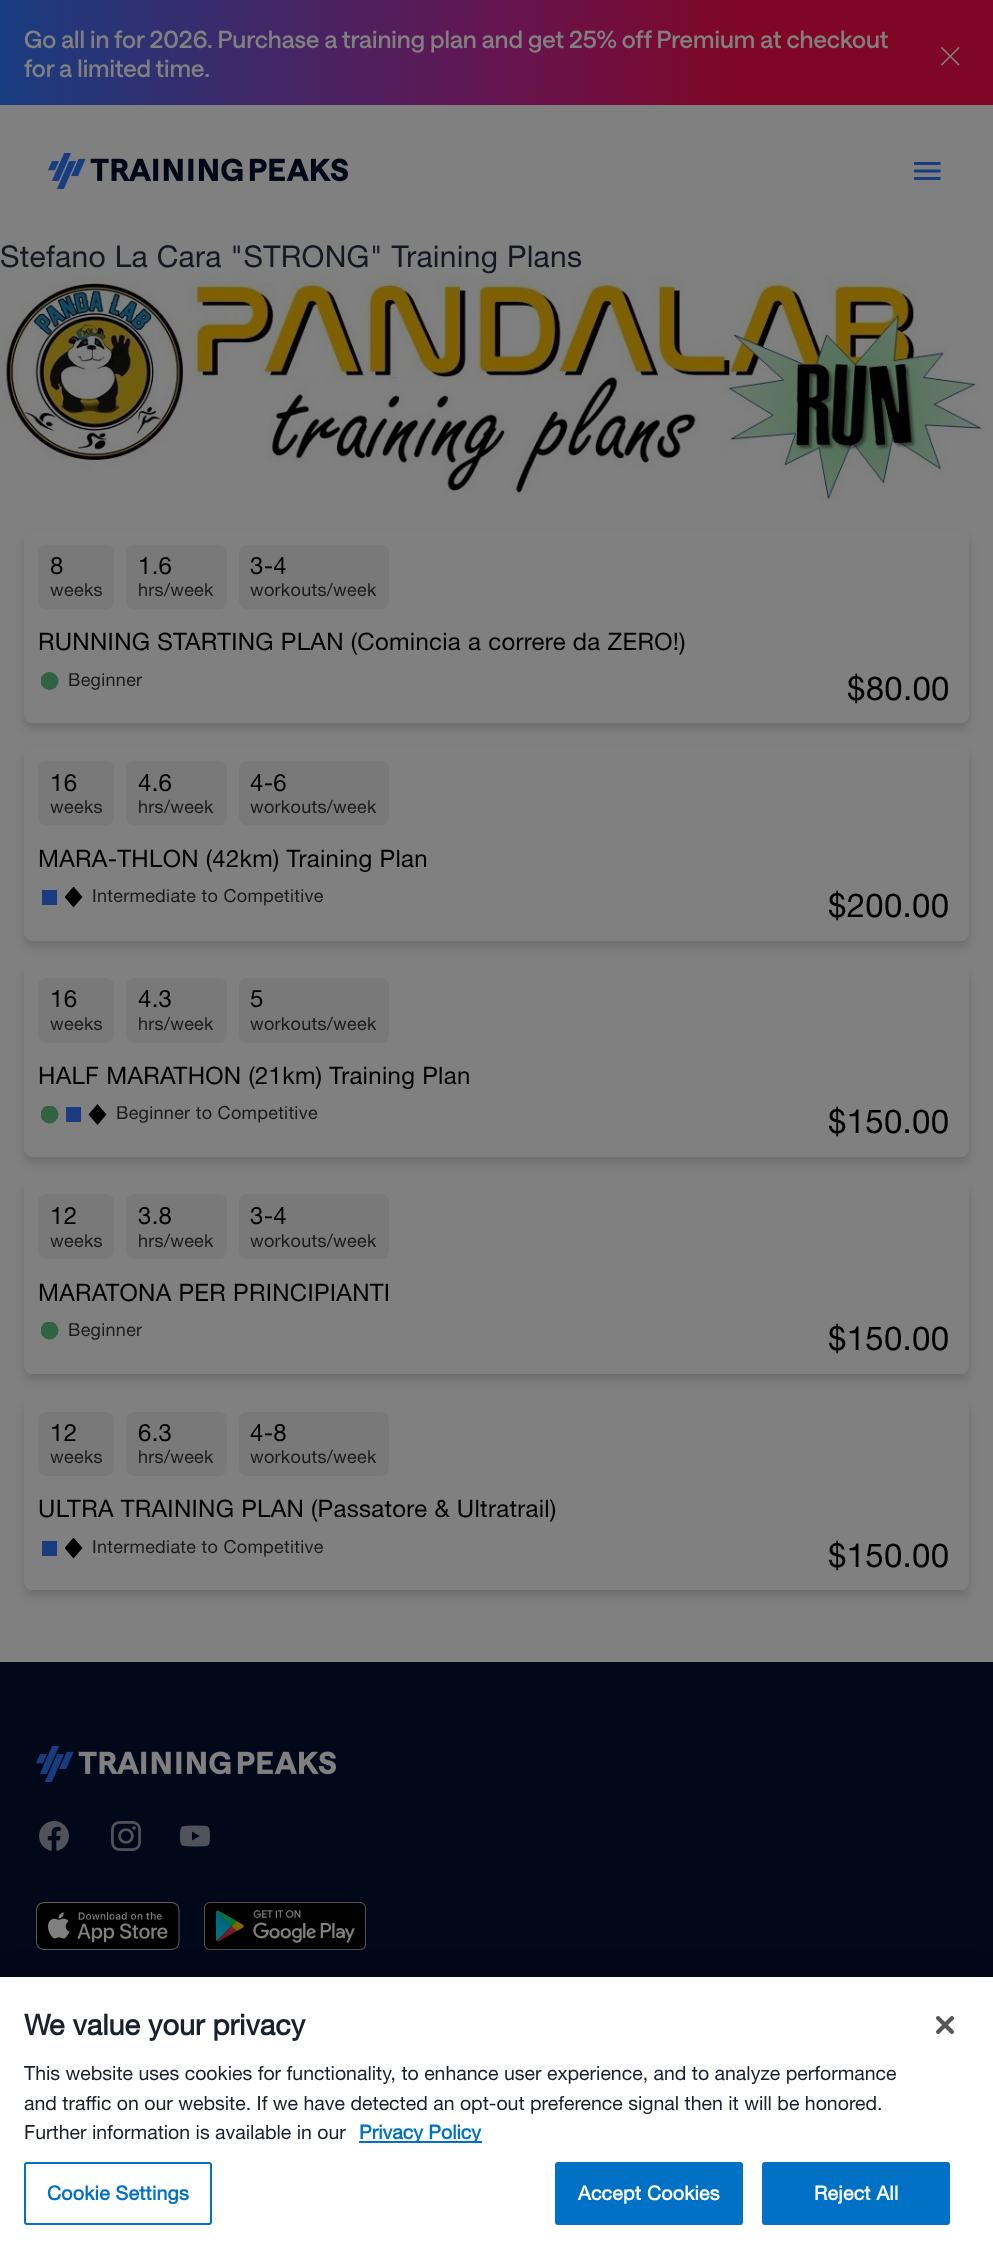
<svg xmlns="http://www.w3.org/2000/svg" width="993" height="2253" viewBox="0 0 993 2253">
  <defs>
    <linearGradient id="g1" gradientUnits="userSpaceOnUse" x1="0" y1="53" x2="993" y2="52"><stop offset="0" stop-color="#193c80"/><stop offset="0.5" stop-color="#641551"/><stop offset="0.75" stop-color="#800625"/></linearGradient>
    <clipPath id="clip1"><path d="M41 672h18v18H41z"/></clipPath>
    <clipPath id="clip2"><path d="M65 887h18v21H65z"/></clipPath>
    <clipPath id="clip3"><path d="M41 1106h18v18H41z"/></clipPath>
    <clipPath id="clip4"><path d="M41 1322h18v18H41z"/></clipPath>
    <clipPath id="clip5"><path d="M65 1538h18v21H65z"/></clipPath>
  </defs>
  <rect width="100%" height="100%" fill="#808080"/>
  <path d="M0 0h993v105H0z" fill="url(#g1)"/>
  <image x="941" y="47" width="19" height="19" href="img/1.png"/>
  <image x="48" y="153" width="300" height="36" href="img/2.png"/>
  <image x="914" y="162" width="27" height="18" href="img/3.png"/>
  <image x="0" y="274" width="987" height="226" href="img/4.png"/>
  <rect x="24" y="537" width="945" height="192" rx="8" fill="#00000024" filter="blur(4px)"/>
  <rect x="24" y="531" width="945" height="192" rx="8" fill="#808080"/>
  <rect x="38" y="545" width="76" height="64" rx="8" fill="#797979"/>
  <rect x="126" y="545" width="101" height="64" rx="8" fill="#797979"/>
  <rect x="239" y="545" width="150" height="64" rx="8" fill="#797979"/>
  <g clip-path="url(#clip1)">
    <circle cx="49.5" cy="681" r="9" fill="#316241"/>
  </g>
  <rect x="24" y="753" width="945" height="194" rx="8" fill="#00000024" filter="blur(4px)"/>
  <rect x="24" y="747" width="945" height="194" rx="8" fill="#808080"/>
  <rect x="38" y="761" width="76" height="64" rx="8" fill="#797979"/>
  <rect x="126" y="761" width="101" height="64" rx="8" fill="#797979"/>
  <rect x="239" y="761" width="150" height="64" rx="8" fill="#797979"/>
  <path d="M42 890h15v15H42z" fill="#193c80"/>
  <g clip-path="url(#clip2)">
    <path d="M82.5 897L73.5 886.5L64.5 897L73.5 907.5Z" fill="#000"/>
  </g>
  <rect x="24" y="971" width="945" height="192" rx="8" fill="#00000024" filter="blur(4px)"/>
  <rect x="24" y="965" width="945" height="192" rx="8" fill="#808080"/>
  <rect x="38" y="978" width="76" height="65" rx="8" fill="#797979"/>
  <rect x="126" y="978" width="101" height="65" rx="8" fill="#797979"/>
  <rect x="239" y="978" width="150" height="65" rx="8" fill="#797979"/>
  <g clip-path="url(#clip3)">
    <circle cx="49.5" cy="1114.5" r="9" fill="#316241"/>
  </g>
  <path d="M66 1107h15v15H66z" fill="#193c80"/>
  <path d="M106.5 1114.5L97.5 1104L88.5 1114.5L97.5 1125Z" fill="#000"/>
  <rect x="24" y="1187" width="945" height="193" rx="8" fill="#00000024" filter="blur(4px)"/>
  <rect x="24" y="1181" width="945" height="193" rx="8" fill="#808080"/>
  <rect x="38" y="1194" width="76" height="65" rx="8" fill="#797979"/>
  <rect x="126" y="1194" width="101" height="65" rx="8" fill="#797979"/>
  <rect x="239" y="1194" width="150" height="65" rx="8" fill="#797979"/>
  <g clip-path="url(#clip4)">
    <circle cx="49.5" cy="1330.5" r="9" fill="#316241"/>
  </g>
  <rect x="24" y="1404" width="945" height="192" rx="8" fill="#00000024" filter="blur(4px)"/>
  <rect x="24" y="1398" width="945" height="192" rx="8" fill="#808080"/>
  <rect x="38" y="1412" width="76" height="64" rx="8" fill="#797979"/>
  <rect x="126" y="1412" width="101" height="64" rx="8" fill="#797979"/>
  <rect x="239" y="1412" width="150" height="64" rx="8" fill="#797979"/>
  <path d="M42 1541h15v15H42z" fill="#193c80"/>
  <g clip-path="url(#clip5)">
    <path d="M82.5 1548L73.5 1537.5L64.5 1548L73.5 1558.5Z" fill="#000"/>
  </g>
  <path d="M0 1662h993v315H0z" fill="#010819"/>
  <image x="36" y="1746" width="300" height="36" href="img/5.png"/>
  <image x="39" y="1821" width="30" height="30" href="img/6.png"/>
  <image x="111" y="1821" width="30" height="30" href="img/7.png"/>
  <image x="180" y="1825" width="30" height="22" href="img/8.png"/>
  <image x="36" y="1902" width="144" height="48" href="img/9.png"/>
  <image x="204" y="1902" width="162" height="48" href="img/10.png"/>
  <path d="M0 1977h993v276H0z" fill="#00000033" filter="blur(13.5px)"/>
  <path d="M0 1977h993v276H0z" fill="#fff"/>
  <path d="M359 2141h123v2H359z" fill="#0071c4"/>
  <rect x="25" y="2163" width="186" height="61" rx="2" fill="none" stroke="#0071c4" stroke-width="2"/>
  <rect x="556" y="2163" width="186" height="61" rx="2" fill="#0071c4" stroke="#0071c4" stroke-width="2"/>
  <rect x="763" y="2163" width="186" height="61" rx="2" fill="#0071c4" stroke="#0071c4" stroke-width="2"/>
  <image x="936" y="2016" width="18" height="18" href="img/11.png"/>
  <g font-family="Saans" font-size="24" font-weight="500" fill="#808080">
    <text x="24" y="48">Go all in for 2026. Purchase a training plan and get 25% off Premium at checkout</text>
    <text x="24" y="77">for a limited time.</text>
  </g>
  <text x="0" y="267" font-family="'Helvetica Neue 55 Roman'" font-size="30" letter-spacing="0.3" fill="#141820">Stefano La Cara "STRONG" Training Plans</text>
  <text x="50" y="574" font-family="'Helvetica Neue 55 Roman'" font-size="24" letter-spacing="0.3" fill="#000">8</text>
  <text x="50" y="596" font-family="'Helvetica Neue 55 Roman'" font-size="18" letter-spacing="0.3" fill="#1a1a1a">weeks</text>
  <text x="138" y="574" font-family="'Helvetica Neue 55 Roman'" font-size="24" letter-spacing="0.3" fill="#000">1.6</text>
  <text x="138" y="596" font-family="'Helvetica Neue 55 Roman'" font-size="18" letter-spacing="0.3" fill="#1a1a1a">hrs/week</text>
  <text x="250" y="574" font-family="'Helvetica Neue 55 Roman'" font-size="24" letter-spacing="0.3" fill="#000">3-4</text>
  <text x="250" y="596" font-family="'Helvetica Neue 55 Roman'" font-size="18" letter-spacing="0.3" fill="#1a1a1a">workouts/week</text>
  <text x="38" y="650" font-family="'Helvetica Neue 55 Roman'" font-size="24" letter-spacing="0.3" fill="#000">RUNNING STARTING PLAN (Comincia a correre da ZERO!)</text>
  <text x="68" y="686" font-family="'Helvetica Neue 55 Roman'" font-size="18" letter-spacing="0.3" fill="#1a1a1a">Beginner</text>
  <text x="847" y="700" font-family="'Helvetica Neue 55 Roman'" font-size="33" letter-spacing="0.3" fill="#000">$80.00</text>
  <text x="50" y="791" font-family="'Helvetica Neue 55 Roman'" font-size="24" letter-spacing="0.3" fill="#000">16</text>
  <text x="50" y="813" font-family="'Helvetica Neue 55 Roman'" font-size="18" letter-spacing="0.3" fill="#1a1a1a">weeks</text>
  <text x="138" y="791" font-family="'Helvetica Neue 55 Roman'" font-size="24" letter-spacing="0.3" fill="#000">4.6</text>
  <text x="138" y="813" font-family="'Helvetica Neue 55 Roman'" font-size="18" letter-spacing="0.3" fill="#1a1a1a">hrs/week</text>
  <text x="250" y="791" font-family="'Helvetica Neue 55 Roman'" font-size="24" letter-spacing="0.3" fill="#000">4-6</text>
  <text x="250" y="813" font-family="'Helvetica Neue 55 Roman'" font-size="18" letter-spacing="0.3" fill="#1a1a1a">workouts/week</text>
  <text x="38" y="867" font-family="'Helvetica Neue 55 Roman'" font-size="24" letter-spacing="0.3" fill="#000">MARA-THLON (42km) Training Plan</text>
  <text x="92" y="902" font-family="'Helvetica Neue 55 Roman'" font-size="18" letter-spacing="0.3" fill="#1a1a1a">Intermediate to Competitive</text>
  <text x="828" y="917" font-family="'Helvetica Neue 55 Roman'" font-size="33" letter-spacing="0.3" fill="#000">$200.00</text>
  <text x="50" y="1007" font-family="'Helvetica Neue 55 Roman'" font-size="24" letter-spacing="0.3" fill="#000">16</text>
  <text x="50" y="1030" font-family="'Helvetica Neue 55 Roman'" font-size="18" letter-spacing="0.3" fill="#1a1a1a">weeks</text>
  <text x="138" y="1007" font-family="'Helvetica Neue 55 Roman'" font-size="24" letter-spacing="0.3" fill="#000">4.3</text>
  <text x="138" y="1030" font-family="'Helvetica Neue 55 Roman'" font-size="18" letter-spacing="0.3" fill="#1a1a1a">hrs/week</text>
  <text x="250" y="1007" font-family="'Helvetica Neue 55 Roman'" font-size="24" letter-spacing="0.3" fill="#000">5</text>
  <text x="250" y="1030" font-family="'Helvetica Neue 55 Roman'" font-size="18" letter-spacing="0.3" fill="#1a1a1a">workouts/week</text>
  <text x="38" y="1084" font-family="'Helvetica Neue 55 Roman'" font-size="24" letter-spacing="0.3" fill="#000">HALF MARATHON (21km) Training Plan</text>
  <text x="116" y="1119" font-family="'Helvetica Neue 55 Roman'" font-size="18" letter-spacing="0.3" fill="#1a1a1a">Beginner to Competitive</text>
  <text x="828" y="1133" font-family="'Helvetica Neue 55 Roman'" font-size="33" letter-spacing="0.3" fill="#000">$150.00</text>
  <text x="50" y="1224" font-family="'Helvetica Neue 55 Roman'" font-size="24" letter-spacing="0.3" fill="#000">12</text>
  <text x="50" y="1247" font-family="'Helvetica Neue 55 Roman'" font-size="18" letter-spacing="0.3" fill="#1a1a1a">weeks</text>
  <text x="138" y="1224" font-family="'Helvetica Neue 55 Roman'" font-size="24" letter-spacing="0.3" fill="#000">3.8</text>
  <text x="138" y="1247" font-family="'Helvetica Neue 55 Roman'" font-size="18" letter-spacing="0.3" fill="#1a1a1a">hrs/week</text>
  <text x="250" y="1224" font-family="'Helvetica Neue 55 Roman'" font-size="24" letter-spacing="0.3" fill="#000">3-4</text>
  <text x="250" y="1247" font-family="'Helvetica Neue 55 Roman'" font-size="18" letter-spacing="0.3" fill="#1a1a1a">workouts/week</text>
  <text x="38" y="1301" font-family="'Helvetica Neue 55 Roman'" font-size="24" letter-spacing="0.3" fill="#000">MARATONA PER PRINCIPIANTI</text>
  <text x="68" y="1336" font-family="'Helvetica Neue 55 Roman'" font-size="18" letter-spacing="0.3" fill="#1a1a1a">Beginner</text>
  <text x="828" y="1350" font-family="'Helvetica Neue 55 Roman'" font-size="33" letter-spacing="0.3" fill="#000">$150.00</text>
  <text x="50" y="1441" font-family="'Helvetica Neue 55 Roman'" font-size="24" letter-spacing="0.3" fill="#000">12</text>
  <text x="50" y="1463" font-family="'Helvetica Neue 55 Roman'" font-size="18" letter-spacing="0.3" fill="#1a1a1a">weeks</text>
  <text x="138" y="1441" font-family="'Helvetica Neue 55 Roman'" font-size="24" letter-spacing="0.3" fill="#000">6.3</text>
  <text x="138" y="1463" font-family="'Helvetica Neue 55 Roman'" font-size="18" letter-spacing="0.3" fill="#1a1a1a">hrs/week</text>
  <text x="250" y="1441" font-family="'Helvetica Neue 55 Roman'" font-size="24" letter-spacing="0.3" fill="#000">4-8</text>
  <text x="250" y="1463" font-family="'Helvetica Neue 55 Roman'" font-size="18" letter-spacing="0.3" fill="#1a1a1a">workouts/week</text>
  <text x="38" y="1517" font-family="'Helvetica Neue 55 Roman'" font-size="24" letter-spacing="0.3" fill="#000">ULTRA TRAINING PLAN (Passatore &amp; Ultratrail)</text>
  <text x="92" y="1553" font-family="'Helvetica Neue 55 Roman'" font-size="18" letter-spacing="0.3" fill="#1a1a1a">Intermediate to Competitive</text>
  <text x="828" y="1567" font-family="'Helvetica Neue 55 Roman'" font-size="33" letter-spacing="0.3" fill="#000">$150.00</text>
  <text x="24" y="2035" font-family="'Helvetica Neue 55 Roman'" font-size="28.75" font-weight="bold" fill="#1a202e">We value your privacy</text>
  <g font-family="'Helvetica Neue 55 Roman'" font-size="19.5" fill="#1a202e">
    <text x="24" y="2080">This website uses cookies for functionality, to enhance user experience, and to analyze performance</text>
    <text x="24" y="2110">and traffic on our website. If we have detected an opt-out preference signal then it will be honored.</text>
    <text x="24" y="2139">Further information is available in our</text>
  </g>
  <text x="359" y="2139" font-family="'Helvetica Neue 55 Roman'" font-size="19.5" font-weight="bold" fill="#0071c4">Privacy Policy</text>
  <text x="47" y="2200" font-family="'Helvetica Neue 55 Roman'" font-size="19.5" font-weight="bold" letter-spacing="0.25" fill="#0071c4">Cookie Settings</text>
  <g font-family="'Helvetica Neue 55 Roman'" font-size="19.5" font-weight="bold" letter-spacing="0.25" fill="#fff">
    <text x="578" y="2200">Accept Cookies</text>
    <text x="814" y="2200">Reject All</text>
  </g>
</svg>
